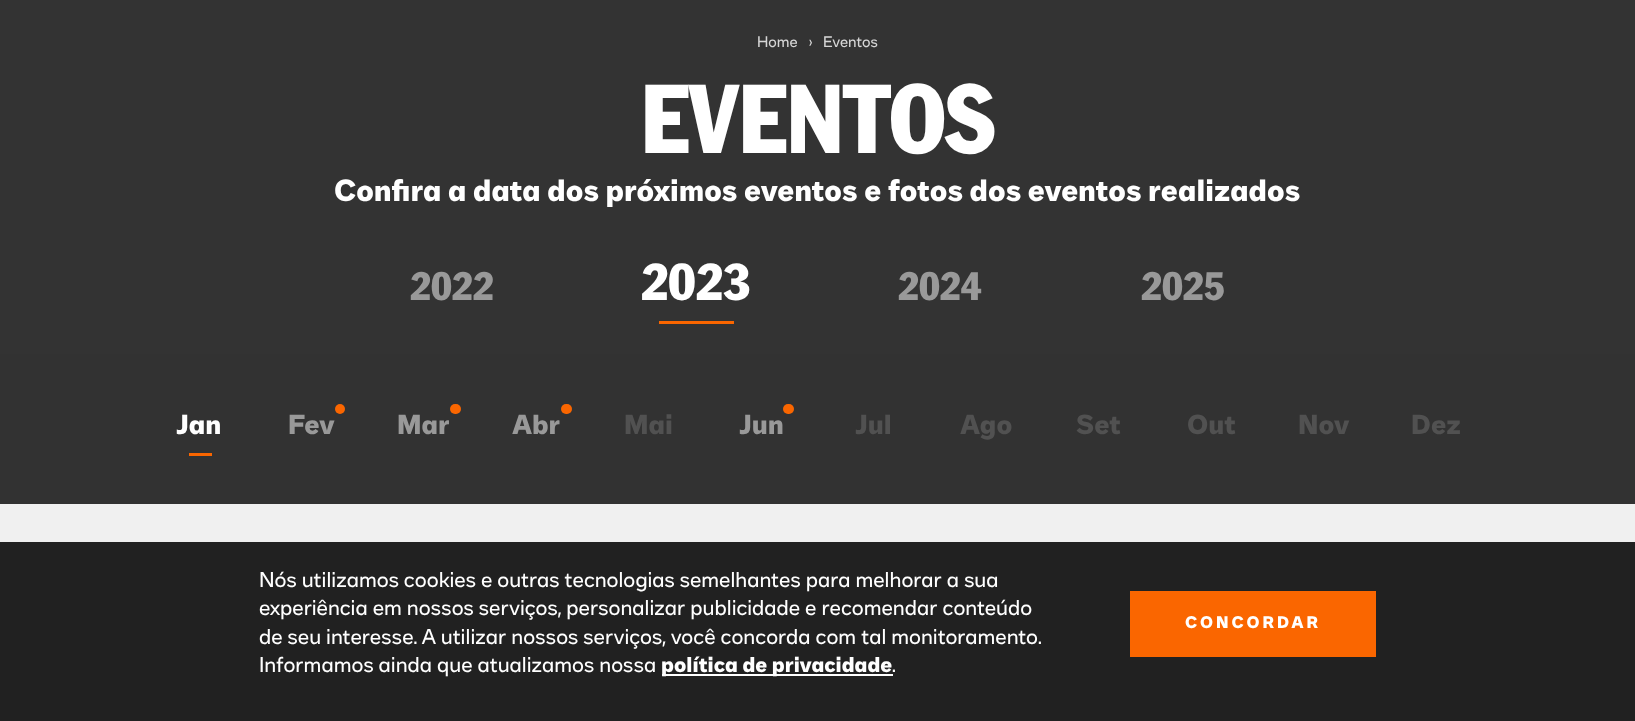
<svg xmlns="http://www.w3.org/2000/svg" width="1635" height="721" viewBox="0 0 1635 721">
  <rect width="100%" height="100%" fill="#f0f0f0"/>
  <path d="M0 0h1635v354H0z" fill="#333"/>
  <path d="M659 321h75v3H659z" fill="#fa6600"/>
  <path d="M0 354h1635v150H0z" fill="#323232"/>
  <path d="M189 453h23v3H189z" fill="#fa6600"/>
  <circle cx="340" cy="409" r="5" fill="#fa6600"/>
  <rect x="450" y="404" width="11" height="10" rx="5" fill="#fa6600"/>
  <rect x="561" y="404" width="11" height="10" rx="5" fill="#fa6600"/>
  <rect x="783" y="404" width="11" height="10" rx="5" fill="#fa6600"/>
  <path d="M0 542h1635v179H0z" fill="#212121"/>
  <path d="M662 674h231v2H662z" fill="#fff"/>
  <path d="M1130 591h246v66H1130z" fill="#fa6600"/>
  <g font-family="'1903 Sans'" font-size="15" fill="#d6d6d6">
    <text x="757" y="47">Home</text>
    <text x="809" y="47">›</text>
    <text x="823" y="47">Eventos</text>
  </g>
  <text x="641" y="153" font-family="Franklin Gothic" font-size="96" fill="#fff">EVENTOS</text>
  <text x="334" y="201" font-family="'1903 Sans'" font-size="30" font-weight="bold" fill="#fff">Confira a data dos próximos eventos e fotos dos eventos realizados</text>
  <text x="410" y="300" font-family="Franklin Gothic" font-size="39" fill="#999">2022</text>
  <text x="641" y="300" font-family="Franklin Gothic" font-size="51" fill="#fff">2023</text>
  <g font-family="Franklin Gothic" font-size="39" fill="#999">
    <text x="898" y="300">2024</text>
    <text x="1141" y="300">2025</text>
  </g>
  <text x="176" y="434" font-family="'1903 Sans'" font-size="27" font-weight="bold" fill="#fff">Jan</text>
  <g font-family="'1903 Sans'" font-size="27" font-weight="bold" fill="#999">
    <text x="288" y="434">Fev</text>
    <text x="397" y="434">Mar</text>
    <text x="512" y="434">Abr</text>
  </g>
  <text x="624" y="434" font-family="'1903 Sans'" font-size="27" font-weight="bold" fill="#515151">Mai</text>
  <text x="739" y="434" font-family="'1903 Sans'" font-size="27" font-weight="bold" fill="#999">Jun</text>
  <g font-family="'1903 Sans'" font-size="27" font-weight="bold" fill="#515151">
    <text x="855" y="434">Jul</text>
    <text x="960" y="434">Ago</text>
    <text x="1076" y="434">Set</text>
    <text x="1187" y="434">Out</text>
    <text x="1298" y="434">Nov</text>
    <text x="1411" y="434">Dez</text>
  </g>
  <g font-family="'1903 Sans'" font-size="21" fill="#fff">
    <text x="259" y="587">Nós utilizamos cookies e outras tecnologias semelhantes para melhorar a sua</text>
    <text x="259" y="615">experiência em nossos serviços, personalizar publicidade e recomendar conteúdo</text>
    <text x="259" y="644">de seu interesse. A utilizar nossos serviços, você concorda com tal monitoramento.</text>
    <text x="259" y="672">Informamos ainda que atualizamos nossa</text>
  </g>
  <text x="661" y="672" font-family="'1903 Sans'" font-size="21" font-weight="bold" fill="#fff">política de privacidade</text>
  <text x="892" y="672" font-family="'1903 Sans'" font-size="21" fill="#fff">.</text>
  <text x="1185" y="628" font-family="'1903 Sans'" font-size="16.5" font-weight="bold" letter-spacing="3" fill="#fff">CONCORDAR</text>
</svg>
